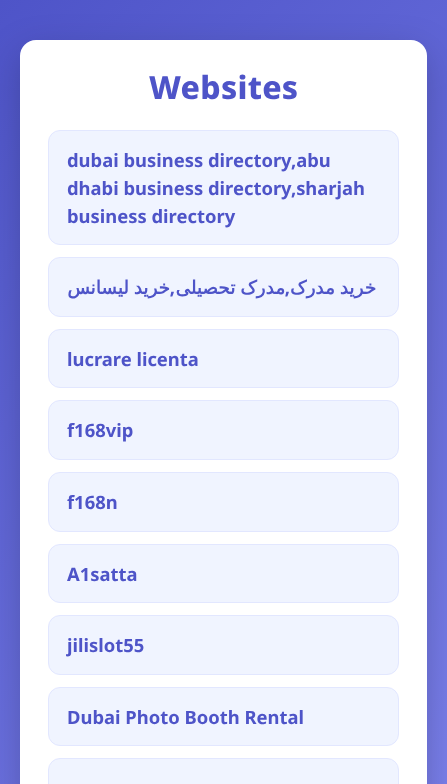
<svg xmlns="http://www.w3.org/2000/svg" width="447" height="784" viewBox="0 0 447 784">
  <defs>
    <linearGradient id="g1" gradientUnits="userSpaceOnUse" x1="-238" y1="238" x2="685" y2="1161"><stop offset="0" stop-color="#4e54c8"/><stop offset="1" stop-color="#8f94fb"/></linearGradient>
  </defs>
  <rect width="100%" height="100%" fill="#fff"/>
  <path d="M0 0h447v784H0z" fill="url(#g1)"/>
  <rect x="20" y="52" width="407" height="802" rx="16" fill="#00000033" filter="blur(18px)"/>
  <rect x="20" y="40" width="407" height="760" rx="16" fill="#fff"/>
  <rect x="48.5" y="130.5" width="350" height="114" rx="11.5" fill="#f0f4ff" stroke="#e2e7ff"/>
  <rect x="48.5" y="257.5" width="350" height="59" rx="11.5" fill="#f0f4ff" stroke="#e2e7ff"/>
  <rect x="48.5" y="329.5" width="350" height="58" rx="11.5" fill="#f0f4ff" stroke="#e2e7ff"/>
  <rect x="48.5" y="400.5" width="350" height="59" rx="11.5" fill="#f0f4ff" stroke="#e2e7ff"/>
  <rect x="48.5" y="472.5" width="350" height="59" rx="11.5" fill="#f0f4ff" stroke="#e2e7ff"/>
  <rect x="48.5" y="544.5" width="350" height="58" rx="11.5" fill="#f0f4ff" stroke="#e2e7ff"/>
  <rect x="48.5" y="615.5" width="350" height="59" rx="11.5" fill="#f0f4ff" stroke="#e2e7ff"/>
  <rect x="48.5" y="687.5" width="350" height="58" rx="11.5" fill="#f0f4ff" stroke="#e2e7ff"/>
  <rect x="48.5" y="758.5" width="350" height="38" rx="11.5" fill="#f0f4ff" stroke="#e2e7ff"/>
  <text x="149" y="99" font-family="Noto Sans" font-size="32" font-weight="800" letter-spacing="0.25" fill="#4e54c8">Websites</text>
  <g font-family="Noto Sans" font-size="18.4" font-weight="bold" fill="#4e54c8">
    <text x="67" y="167">dubai business directory,abu</text>
    <text x="67" y="195">dhabi business directory,sharjah</text>
    <text x="67" y="223">business directory</text>
  </g>
  <text x="170" y="294" word-spacing="-1" font-family="DejaVu Sans" font-size="18.4" font-weight="bold" direction="rtl" fill="#4e54c8">خرید لیسانس</text>
  <text x="175" y="294" font-family="Noto Sans" font-size="18.4" font-weight="bold" direction="rtl" fill="#4e54c8">,</text>
  <text x="285" y="294" word-spacing="-1" font-family="DejaVu Sans" font-size="18.4" font-weight="bold" direction="rtl" fill="#4e54c8">مدرک تحصیلی</text>
  <text x="290" y="294" font-family="Noto Sans" font-size="18.4" font-weight="bold" direction="rtl" fill="#4e54c8">,</text>
  <text x="376" y="294" word-spacing="-1" font-family="DejaVu Sans" font-size="18.4" font-weight="bold" direction="rtl" fill="#4e54c8">خرید مدرک</text>
  <g font-family="Noto Sans" font-size="18.4" font-weight="bold" fill="#4e54c8">
    <text x="67" y="366">lucrare licenta</text>
    <text x="67" y="437">f168vip</text>
    <text x="67" y="509">f168n</text>
    <text x="67" y="581">A1satta</text>
    <text x="67" y="652">jilislot55</text>
    <text x="67" y="724">Dubai Photo Booth Rental</text>
  </g>
</svg>
